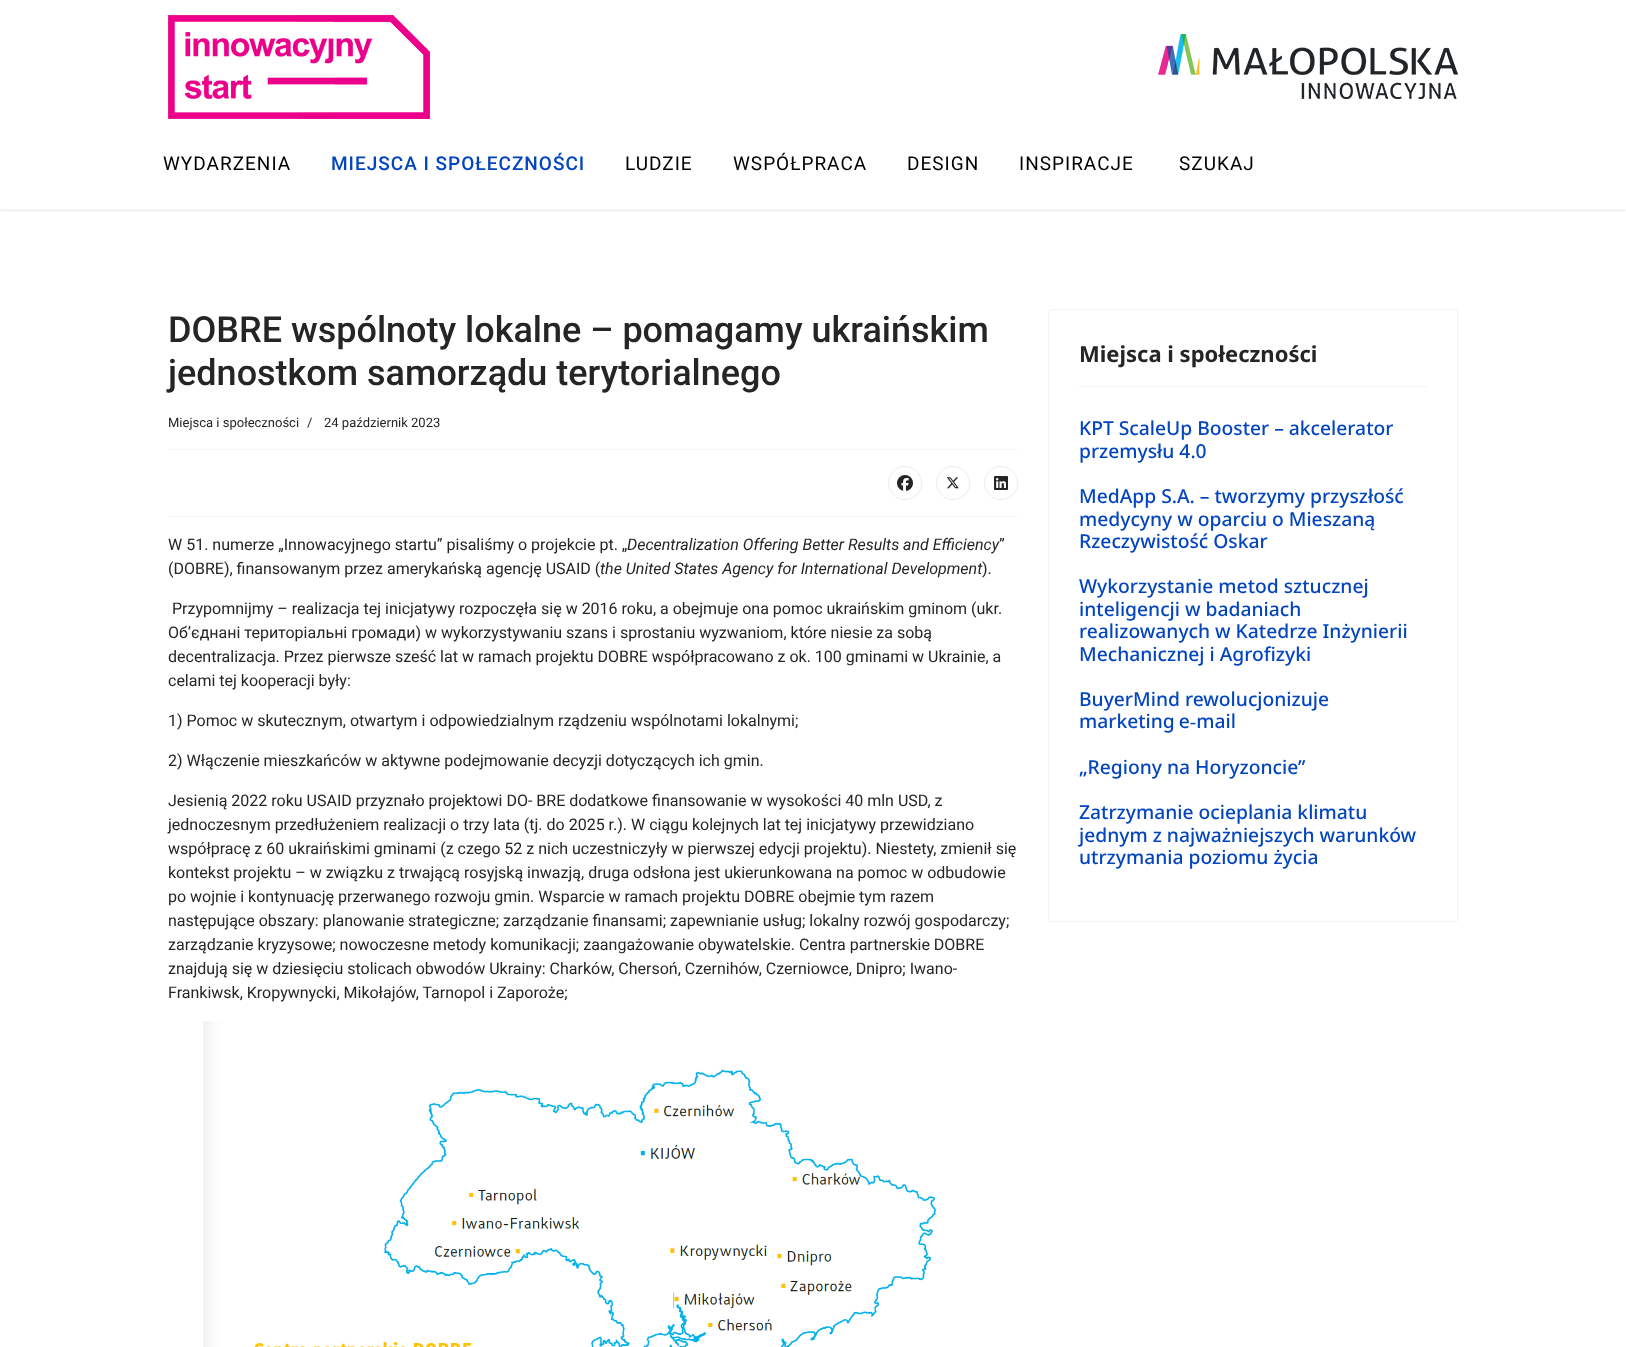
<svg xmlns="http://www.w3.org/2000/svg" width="1626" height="1347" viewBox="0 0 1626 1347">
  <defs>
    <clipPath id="clip1"><path d="M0 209h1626v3H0z"/></clipPath>
  </defs>
  <rect width="100%" height="100%" fill="#fff"/>
  <image x="168" y="15" width="262" height="104" href="img/1.png"/>
  <image x="1158" y="34" width="300" height="65" href="img/2.png"/>
  <g clip-path="url(#clip1)">
    <path d="M0 122h1626v90H0z" fill="#0000000d" filter="blur(1.5px)"/>
  </g>
  <path d="M168 449h850v1H168z" fill="#f5f5f5"/>
  <path d="M168 516h850v1H168z" fill="#f5f5f5"/>
  <circle cx="905" cy="483" r="16.5" fill="none" stroke="#ededed"/>
  <image x="897" y="475" width="16" height="16" href="img/3.png"/>
  <circle cx="953" cy="483" r="16.5" fill="none" stroke="#ededed"/>
  <image x="946" y="477" width="13" height="12" href="img/4.png"/>
  <circle cx="1001" cy="483" r="16.5" fill="none" stroke="#ededed"/>
  <image x="994" y="476" width="14" height="14" href="img/5.png"/>
  <image x="203" y="1021" width="733" height="326" href="img/6.png"/>
  <rect x="1048.5" y="309.5" width="409" height="612" rx="2.5" fill="none" stroke="#f3f3f3"/>
  <path d="M1079 386h348v1H1079z" fill="#f3f3f3"/>
  <text x="163" y="170" font-family="Roboto" font-size="19" letter-spacing="1" fill="#000">WYDARZENIA</text>
  <text x="331" y="170" font-family="Roboto" font-size="19" font-weight="500" letter-spacing="1" fill="#0345bf">MIEJSCA I SPOŁECZNOŚCI</text>
  <g font-family="Roboto" font-size="19" letter-spacing="1" fill="#000">
    <text x="625" y="170">LUDZIE</text>
    <text x="733" y="170">WSPÓŁPRACA</text>
    <text x="907" y="170">DESIGN</text>
    <text x="1019" y="170">INSPIRACJE</text>
    <text x="1179" y="170">SZUKAJ</text>
  </g>
  <g font-family="Roboto" font-size="36" font-weight="500" fill="#252525">
    <text x="168" y="342">DOBRE wspólnoty lokalne – pomagamy ukraińskim</text>
    <text x="168" y="385">jednostkom samorządu terytorialnego</text>
  </g>
  <g font-family="Roboto" font-size="13" fill="#252525">
    <text x="168" y="427">Miejsca i społeczności</text>
    <text x="307" y="427">/</text>
    <text x="324" y="427">24 październik 2023</text>
  </g>
  <text x="168" y="550" font-family="Roboto" font-size="16" fill="#252525">W 51. numerze „Innowacyjnego startu” pisaliśmy o projekcie pt. „</text>
  <text x="627" y="550" font-family="Roboto" font-size="16" font-style="italic" fill="#252525">Decentralization Offering Better Results and Efficiency</text>
  <g font-family="Roboto" font-size="16" fill="#252525">
    <text x="999" y="550">”</text>
    <text x="168" y="574">(DOBRE), finansowanym przez amerykańską agencję USAID (</text>
  </g>
  <text x="600" y="574" font-family="Roboto" font-size="16" font-style="italic" fill="#252525">the United States Agency for International Development</text>
  <g font-family="Roboto" font-size="16" fill="#252525">
    <text x="982" y="574">).</text>
    <text x="172" y="614">Przypomnijmy – realizacja tej inicjatywy rozpoczęła się w 2016 roku, a obejmuje ona pomoc ukraińskim gminom (ukr.</text>
    <text x="168" y="638">Об’єднані територіальні громади) w wykorzystywaniu szans i sprostaniu wyzwaniom, które niesie za sobą</text>
    <text x="168" y="662">decentralizacja. Przez pierwsze sześć lat w ramach projektu DOBRE współpracowano z ok. 100 gminami w Ukrainie, a</text>
    <text x="168" y="686">celami tej kooperacji były:</text>
    <text x="168" y="726">1) Pomoc w skutecznym, otwartym i odpowiedzialnym rządzeniu wspólnotami lokalnymi;</text>
    <text x="168" y="766">2) Włączenie mieszkańców w aktywne podejmowanie decyzji dotyczących ich gmin.</text>
    <text x="168" y="806">Jesienią 2022 roku USAID przyznało projektowi DO- BRE dodatkowe finansowanie w wysokości 40 mln USD, z</text>
    <text x="168" y="830">jednoczesnym przedłużeniem realizacji o trzy lata (tj. do 2025 r.). W ciągu kolejnych lat tej inicjatywy przewidziano</text>
    <text x="168" y="854">współpracę z 60 ukraińskimi gminami (z czego 52 z nich uczestniczyły w pierwszej edycji projektu). Niestety, zmienił się</text>
    <text x="168" y="878">kontekst projektu – w związku z trwającą rosyjską inwazją, druga odsłona jest ukierunkowana na pomoc w odbudowie</text>
    <text x="168" y="902">po wojnie i kontynuację przerwanego rozwoju gmin. Wsparcie w ramach projektu DOBRE obejmie tym razem</text>
    <text x="168" y="926">następujące obszary: planowanie strategiczne; zarządzanie finansami; zapewnianie usług; lokalny rozwój gospodarczy;</text>
    <text x="168" y="950">zarządzanie kryzysowe; nowoczesne metody komunikacji; zaangażowanie obywatelskie. Centra partnerskie DOBRE</text>
    <text x="168" y="974">znajdują się w dziesięciu stolicach obwodów Ukrainy: Charków, Chersoń, Czernihów, Czerniowce, Dnipro; Iwano-</text>
    <text x="168" y="998">Frankiwsk, Kropywnycki, Mikołajów, Tarnopol i Zaporoże;</text>
  </g>
  <text x="1079" y="362" font-family="Noto Sans" font-size="22" font-weight="bold" fill="#252525">Miejsca i społeczności</text>
  <g font-family="Noto Sans" font-size="19.25" font-weight="500" fill="#0345bf">
    <text x="1079" y="435">KPT ScaleUp Booster – akcelerator</text>
    <text x="1079" y="458">przemysłu 4.0</text>
    <text x="1079" y="503">MedApp S.A. – tworzymy przyszłość</text>
    <text x="1079" y="526">medycyny w oparciu o Mieszaną</text>
    <text x="1079" y="548">Rzeczywistość Oskar</text>
    <text x="1079" y="593">Wykorzystanie metod sztucznej</text>
    <text x="1079" y="616">inteligencji w badaniach</text>
    <text x="1079" y="638">realizowanych w Katedrze Inżynierii</text>
    <text x="1079" y="661">Mechanicznej i Agrofizyki</text>
    <text x="1079" y="706">BuyerMind rewolucjonizuje</text>
    <text x="1079" y="728" word-spacing="-1">marketing e‑mail</text>
    <text x="1079" y="774">„Regiony na Horyzoncie”</text>
    <text x="1079" y="819">Zatrzymanie ocieplania klimatu</text>
    <text x="1079" y="842">jednym z najważniejszych warunków</text>
    <text x="1079" y="864">utrzymania poziomu życia</text>
  </g>
</svg>
